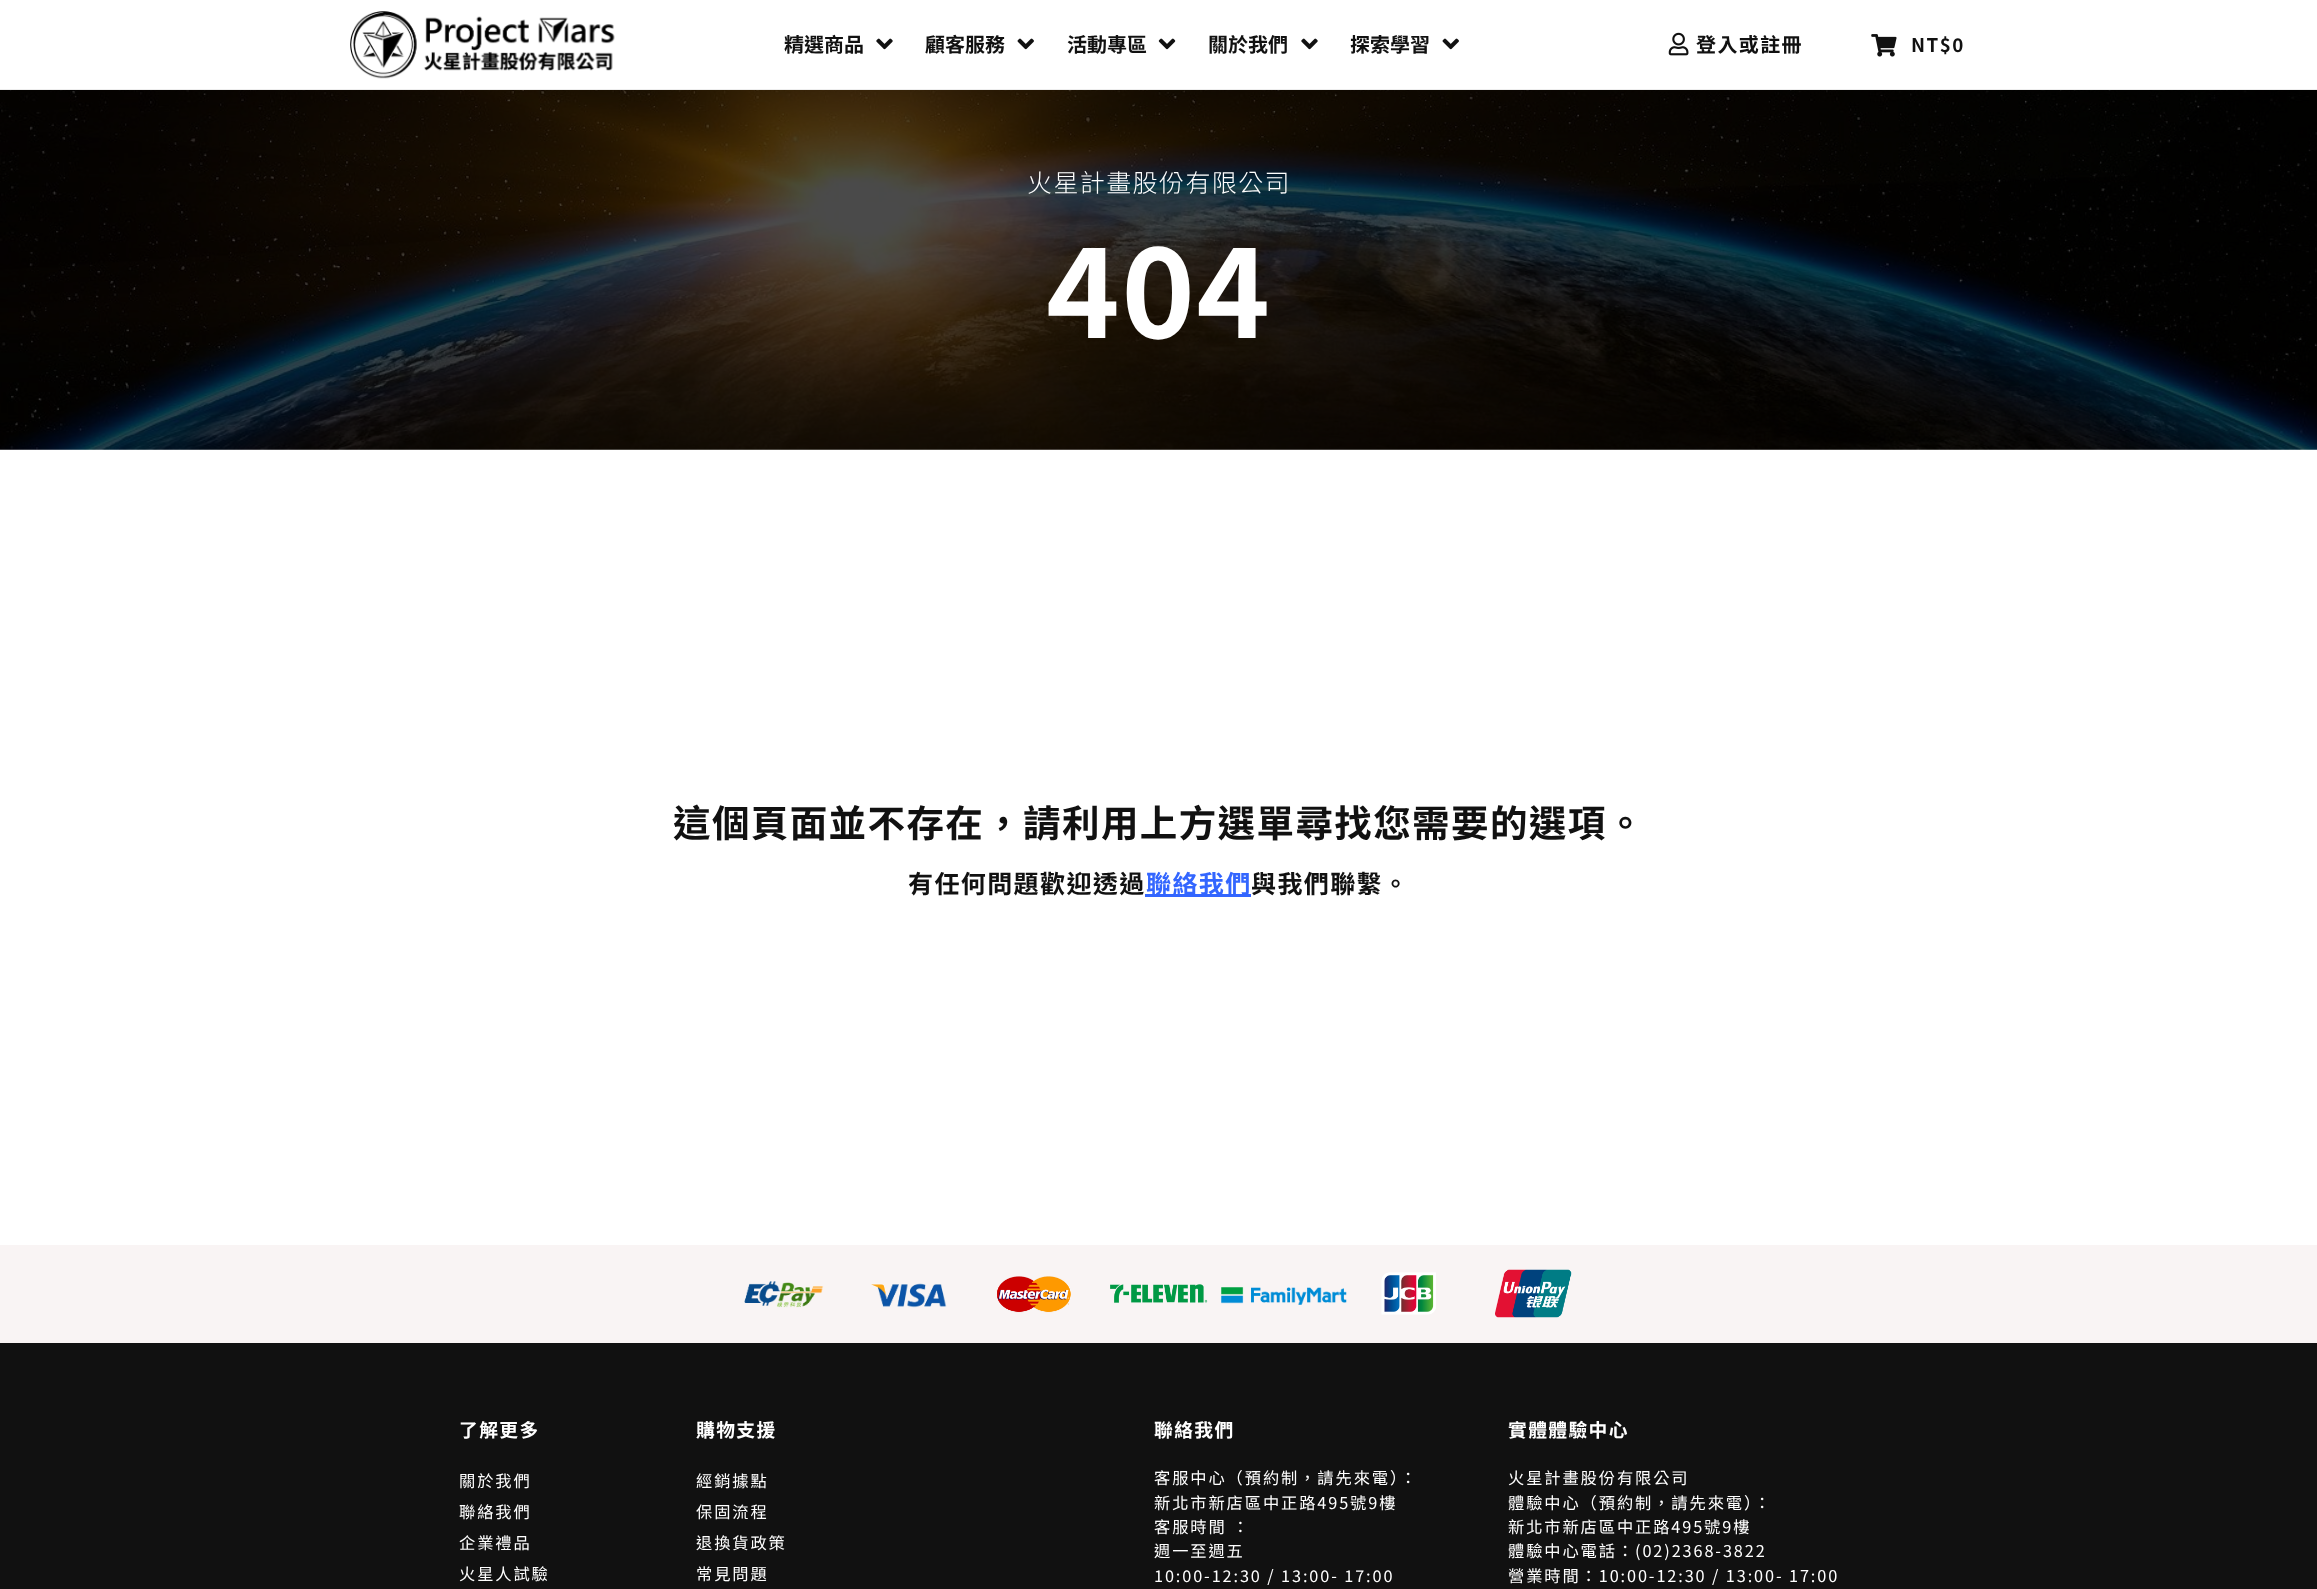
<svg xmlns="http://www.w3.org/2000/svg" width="2317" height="1589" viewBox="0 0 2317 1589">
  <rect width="100%" height="100%" fill="#fff"/>
  <path d="M0 89h2317v1H0z" fill="#ededed"/>
  <image x="350" y="11" width="265" height="68" href="img/1.png"/>
  <image x="876" y="38" width="17" height="12" href="img/2.png"/>
  <image x="1017" y="38" width="17" height="12" href="img/3.png"/>
  <image x="1158" y="38" width="18" height="12" href="img/4.png"/>
  <image x="1301" y="38" width="17" height="12" href="img/2.png"/>
  <image x="1442" y="38" width="17" height="12" href="img/3.png"/>
  <image x="1668" y="32" width="21" height="24" href="img/5.png"/>
  <image x="1871" y="34" width="26" height="23" href="img/6.png"/>
  <image x="0" y="90" width="2317" height="360" href="img/7.png"/>
  <path d="M1145 894h106v3H1145z" fill="#36f"/>
  <path d="M0 1245h2317v98H0z" fill="#f9f4f4"/>
  <image x="744" y="1281" width="80" height="27" href="img/8.png"/>
  <image x="871" y="1283" width="76" height="25" href="img/9.png"/>
  <image x="996" y="1276" width="75" height="37" href="img/10.png"/>
  <image x="1110" y="1284" width="98" height="19" href="img/11.png"/>
  <image x="1221" y="1287" width="126" height="18" href="img/12.png"/>
  <image x="1381" y="1272" width="55" height="43" href="img/13.png"/>
  <image x="1495" y="1269" width="77" height="49" href="img/14.png"/>
  <path d="M0 1343h2317v246H0z" fill="#111"/>
  <g font-family="Noto Sans TC" font-size="20" font-weight="bold" fill="#111">
    <text x="784" y="52">精選商品</text>
    <text x="925" y="52">顧客服務</text>
    <text x="1067" y="52">活動專區</text>
    <text x="1208" y="52">關於我們</text>
    <text x="1350" y="52">探索學習</text>
  </g>
  <text x="1696" y="52" font-family="Noto Sans TC" font-size="20" font-weight="bold" letter-spacing="1.4" fill="#111">登入或註冊</text>
  <text x="1911" y="52" font-family="Noto Sans TC" font-size="18.75" font-weight="bold" letter-spacing="1.5" fill="#111">NT$0</text>
  <text x="1027" y="192" font-family="Noto Sans TC" font-size="25" font-weight="300" letter-spacing="1.4" fill="#fff">火星計畫股份有限公司</text>
  <text x="1046" y="338" font-family="Noto Sans TC" font-size="125" font-weight="bold" letter-spacing="1.4" fill="#fff">404</text>
  <text x="673" y="837" font-family="Noto Sans TC" font-size="37.5" font-weight="bold" letter-spacing="1.4" fill="#111">這個頁面並不存在，請利用上方選單尋找您需要的選項。</text>
  <text x="908" y="893" font-family="Noto Sans TC" font-size="25" font-weight="bold" letter-spacing="1.4" fill="#111">有任何問題歡迎透過</text>
  <text x="1146" y="893" font-family="Noto Sans TC" font-size="25" font-weight="bold" letter-spacing="1.4" fill="#36f">聯絡我們</text>
  <text x="1251" y="893" font-family="Noto Sans TC" font-size="25" font-weight="bold" letter-spacing="1.4" fill="#111">與我們聯繫。</text>
  <text x="459" y="1437" font-family="Noto Sans TC" font-size="18.75" font-weight="bold" letter-spacing="1.4" fill="#fff">了解更多</text>
  <g font-family="Noto Sans TC" font-size="16.25" letter-spacing="1.9" fill="#fff">
    <text x="459" y="1487">關於我們</text>
    <text x="459" y="1518">聯絡我們</text>
    <text x="459" y="1549">企業禮品</text>
    <text x="459" y="1580">火星人試驗</text>
  </g>
  <text x="696" y="1437" font-family="Noto Sans TC" font-size="18.75" font-weight="bold" letter-spacing="1.4" fill="#fff">購物支援</text>
  <g font-family="Noto Sans TC" font-size="16.25" letter-spacing="1.9" fill="#fff">
    <text x="696" y="1487">經銷據點</text>
    <text x="696" y="1518">保固流程</text>
    <text x="696" y="1549">退換貨政策</text>
    <text x="696" y="1580">常見問題</text>
  </g>
  <text x="1154" y="1437" font-family="Noto Sans TC" font-size="18.75" font-weight="bold" letter-spacing="1.4" fill="#fff">聯絡我們</text>
  <g font-family="Noto Sans TC" font-size="16.25" letter-spacing="1.9" fill="#fff">
    <text x="1154" y="1484">客服中心（預約制，請先來電）：</text>
    <text x="1154" y="1509">新北市新店區中正路495號9樓</text>
    <text x="1154" y="1533">客服時間 ：</text>
    <text x="1154" y="1557">週一至週五</text>
    <text x="1154" y="1582">10:00-12:30 / 13:00- 17:00</text>
  </g>
  <text x="1508" y="1437" font-family="Noto Sans TC" font-size="18.75" font-weight="bold" letter-spacing="1.4" fill="#fff">實體體驗中心</text>
  <g font-family="Noto Sans TC" font-size="16.25" letter-spacing="1.9" fill="#fff">
    <text x="1508" y="1484">火星計畫股份有限公司</text>
    <text x="1508" y="1509">體驗中心（預約制，請先來電）：</text>
    <text x="1508" y="1533">新北市新店區中正路495號9樓</text>
    <text x="1508" y="1557">體驗中心電話：(02)2368-3822</text>
    <text x="1508" y="1582">營業時間：10:00-12:30 / 13:00- 17:00</text>
  </g>
</svg>
